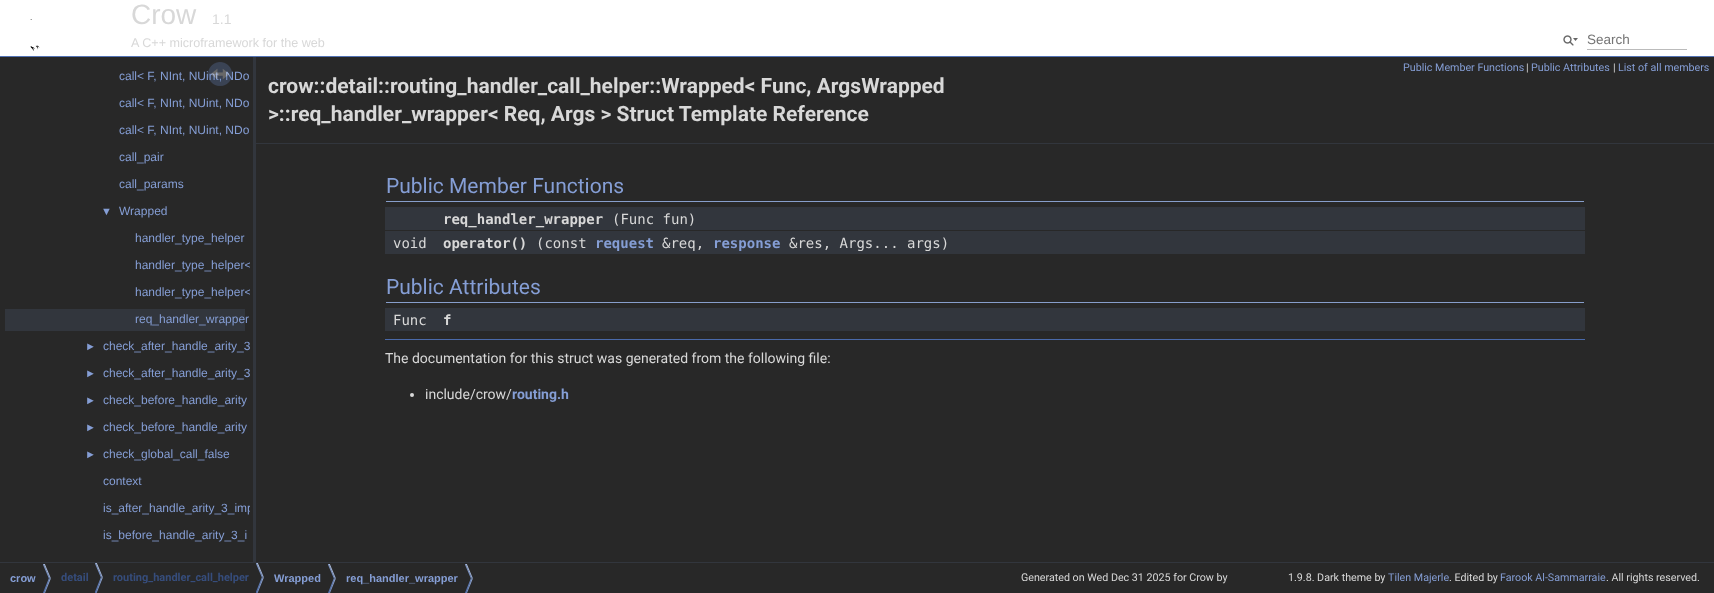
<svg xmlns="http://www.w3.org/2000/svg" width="1714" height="593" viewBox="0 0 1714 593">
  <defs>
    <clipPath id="clip1"><path d="M0 57h250v505H0z"/></clipPath>
  </defs>
  <rect width="100%" height="100%" fill="#282828"/>
  <path d="M0 0h1714v56H0z" fill="#fff"/>
  <path d="M0 56h1714v1H0z" fill="#5373b4"/>
  <image x="30" y="19" width="10" height="32" href="img/1.png"/>
  <image x="1563" y="35" width="15" height="11" href="img/2.png"/>
  <path d="M1587 49h100v1H1587z" fill="#bbb"/>
  <path d="M5 309h240v22H5z" fill="#32363d"/>
  <path d="M253 57h3v505H253z" fill="#32363d"/>
  <path d="M256 143h1458v1H256z" fill="#32363d"/>
  <path d="M386 201h1198v1H386z" fill="#879ecb"/>
  <path d="M385 207h1200v23H385z" fill="#32363d"/>
  <path d="M385 231h1200v23H385z" fill="#32363d"/>
  <path d="M386 302h1198v1H386z" fill="#879ecb"/>
  <path d="M385 308h1200v23H385z" fill="#32363d"/>
  <path d="M385 339h1200v1H385z" fill="#4a6aaa"/>
  <circle cx="412" cy="395" r="2" fill="#d8d8d8"/>
  <path d="M0 562h1714v1H0z" fill="#32363d"/>
  <image x="43" y="564" width="8" height="29" href="img/4.png"/>
  <image x="95" y="563" width="8" height="30" href="img/5.png"/>
  <image x="256" y="563" width="8" height="30" href="img/5.png"/>
  <image x="328" y="564" width="8" height="29" href="img/4.png"/>
  <image x="465" y="564" width="8" height="29" href="img/4.png"/>
  <text x="131" y="24" font-family="Liberation Sans" font-size="28" fill="#d8d8d8">Crow</text>
  <text x="212" y="24" font-family="Liberation Sans" font-size="14" fill="#d8d8d8">1.1</text>
  <text x="131" y="47" font-family="Liberation Sans" font-size="12.6" fill="#d8d8d8">A C++ microframework for the web</text>
  <text x="1587" y="44" font-family="Liberation Sans" font-size="13.5" fill="#757575">Search</text>
  <text x="119" y="80" font-family="Liberation Sans" font-size="12" fill="#859ed5">call&lt; F, NInt, NUint, NDo</text>
  <image x="208" y="62" width="24" height="24" href="img/3.png"/>
  <g font-family="Liberation Sans" font-size="12" fill="#859ed5">
    <text x="119" y="107">call&lt; F, NInt, NUint, NDo</text>
    <text x="119" y="134">call&lt; F, NInt, NUint, NDo</text>
    <text x="119" y="161">call_pair</text>
    <text x="119" y="188">call_params</text>
  </g>
  <text x="101" y="215" font-family="Liberation Sans" font-size="11" fill="#859ed5">▼</text>
  <g font-family="Liberation Sans" font-size="12" fill="#859ed5">
    <text x="119" y="215">Wrapped</text>
    <text x="135" y="242">handler_type_helper</text>
  </g>
  <g clip-path="url(#clip1)">
    <g font-family="Liberation Sans" font-size="12" fill="#859ed5">
      <text x="135" y="269">handler_type_helper&lt;</text>
      <text x="135" y="296">handler_type_helper&lt;</text>
    </g>
  </g>
  <text x="135" y="323" font-family="Liberation Sans" font-size="12" fill="#859ed5">req_handler_wrapper</text>
  <text x="85" y="350" font-family="Liberation Sans" font-size="11" fill="#859ed5">►</text>
  <text x="103" y="350" font-family="Liberation Sans" font-size="12" fill="#859ed5">check_after_handle_arity_3</text>
  <text x="85" y="377" font-family="Liberation Sans" font-size="11" fill="#859ed5">►</text>
  <text x="103" y="377" font-family="Liberation Sans" font-size="12" fill="#859ed5">check_after_handle_arity_3</text>
  <text x="85" y="404" font-family="Liberation Sans" font-size="11" fill="#859ed5">►</text>
  <text x="103" y="404" font-family="Liberation Sans" font-size="12" fill="#859ed5">check_before_handle_arity</text>
  <text x="85" y="431" font-family="Liberation Sans" font-size="11" fill="#859ed5">►</text>
  <text x="103" y="431" font-family="Liberation Sans" font-size="12" fill="#859ed5">check_before_handle_arity</text>
  <text x="85" y="458" font-family="Liberation Sans" font-size="11" fill="#859ed5">►</text>
  <g font-family="Liberation Sans" font-size="12" fill="#859ed5">
    <text x="103" y="458">check_global_call_false</text>
    <text x="103" y="485">context</text>
  </g>
  <g clip-path="url(#clip1)">
    <text x="103" y="512" font-family="Liberation Sans" font-size="12" fill="#859ed5">is_after_handle_arity_3_imp</text>
  </g>
  <text x="103" y="539" font-family="Liberation Sans" font-size="12" fill="#859ed5">is_before_handle_arity_3_i</text>
  <text x="1403" y="71" font-family="Roboto" font-size="10.7" fill="#859ed5">Public Member Functions</text>
  <text x="1526" y="71" font-family="Roboto" font-size="10.7" fill="#d8d8d8">|</text>
  <text x="1531" y="71" font-family="Roboto" font-size="10.7" fill="#859ed5">Public Attributes</text>
  <text x="1613" y="71" font-family="Roboto" font-size="10.7" fill="#d8d8d8">|</text>
  <text x="1618" y="71" font-family="Roboto" font-size="10.7" fill="#859ed5">List of all members</text>
  <g font-family="Roboto" font-size="21" font-weight="bold" fill="#d8d8d8">
    <text x="268" y="93">crow::detail::routing_handler_call_helper::Wrapped&lt; Func, ArgsWrapped</text>
    <text x="268" y="121">&gt;::req_handler_wrapper&lt; Req, Args &gt; Struct Template Reference</text>
  </g>
  <text x="386" y="193" font-family="Roboto" font-size="21" fill="#859ed5">Public Member Functions</text>
  <text x="443" y="224" font-family="DejaVu Sans Mono" font-size="14" font-weight="bold" fill="#d8d8d8">req_handler_wrapper</text>
  <g font-family="DejaVu Sans Mono" font-size="14" fill="#d8d8d8">
    <text x="612" y="224">(Func fun)</text>
    <text x="393" y="248">void</text>
  </g>
  <text x="443" y="248" font-family="DejaVu Sans Mono" font-size="14" font-weight="bold" fill="#d8d8d8">operator()</text>
  <text x="536" y="248" font-family="DejaVu Sans Mono" font-size="14" fill="#d8d8d8">(const</text>
  <text x="595" y="248" font-family="DejaVu Sans Mono" font-size="14" font-weight="bold" fill="#859ed5">request</text>
  <text x="662" y="248" font-family="DejaVu Sans Mono" font-size="14" fill="#d8d8d8">&amp;req,</text>
  <text x="713" y="248" font-family="DejaVu Sans Mono" font-size="14" font-weight="bold" fill="#859ed5">response</text>
  <text x="789" y="248" font-family="DejaVu Sans Mono" font-size="14" fill="#d8d8d8">&amp;res, Args... args)</text>
  <text x="386" y="294" font-family="Roboto" font-size="21" fill="#859ed5">Public Attributes</text>
  <text x="393" y="325" font-family="DejaVu Sans Mono" font-size="14" fill="#d8d8d8">Func</text>
  <text x="443" y="325" font-family="DejaVu Sans Mono" font-size="14" font-weight="bold" fill="#d8d8d8">f</text>
  <g font-family="Roboto" font-size="14" fill="#d8d8d8">
    <text x="385" y="363">The documentation for this struct was generated from the following file:</text>
    <text x="425" y="399">include/crow/</text>
  </g>
  <text x="512" y="399" font-family="Roboto" font-size="14" font-weight="bold" fill="#859ed5">routing.h</text>
  <text x="10" y="582" font-family="Liberation Sans" font-size="11" font-weight="bold" fill="#859ed5">crow</text>
  <g font-family="Roboto" font-size="11" font-weight="bold" fill="#364d7c">
    <text x="61" y="581">detail</text>
    <text x="113" y="581">routing_handler_call_helper</text>
  </g>
  <g font-family="Liberation Sans" font-size="11" font-weight="bold" fill="#859ed5">
    <text x="274" y="582">Wrapped</text>
    <text x="346" y="582">req_handler_wrapper</text>
  </g>
  <g font-family="Roboto" font-size="10.7" fill="#d8d8d8">
    <text x="1021" y="581">Generated on Wed Dec 31 2025 for Crow by</text>
    <text x="1288" y="581">1.9.8. Dark theme by</text>
  </g>
  <text x="1388" y="581" font-family="Roboto" font-size="10.7" fill="#859ed5">Tilen Majerle</text>
  <text x="1449" y="581" font-family="Roboto" font-size="10.7" fill="#d8d8d8">. Edited by</text>
  <text x="1500" y="581" font-family="Roboto" font-size="10.7" fill="#859ed5">Farook Al-Sammarraie</text>
  <text x="1606" y="581" font-family="Roboto" font-size="10.7" fill="#d8d8d8">. All rights reserved.</text>
</svg>
